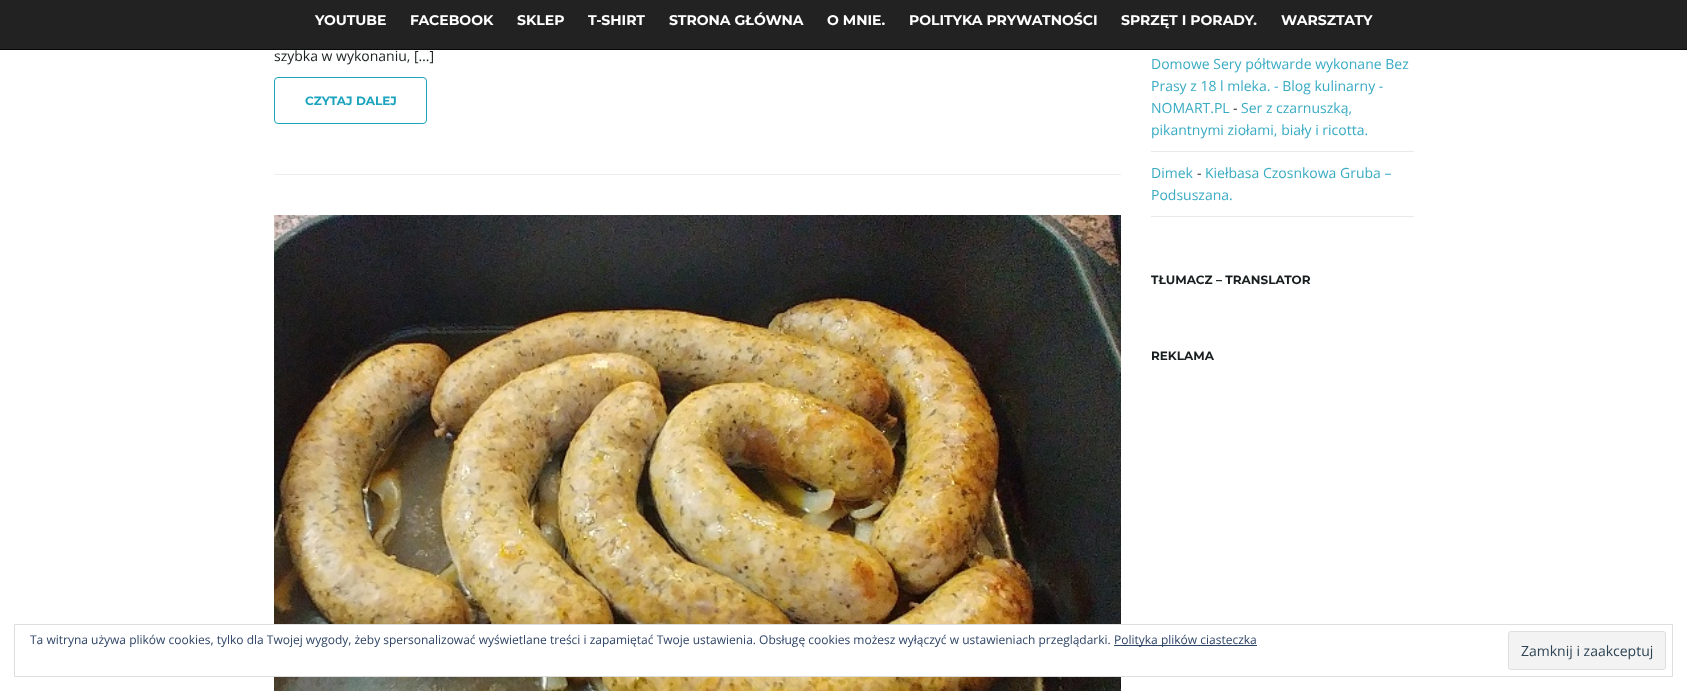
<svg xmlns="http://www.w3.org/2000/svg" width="1687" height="691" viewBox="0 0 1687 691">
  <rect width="100%" height="100%" fill="#fff"/>
  <path d="M0 0h1687v49H0z" fill="#222"/>
  <path d="M0 49h1687v1H0z" fill="#080808"/>
  <path d="M274 174h847v1H274z" fill="#ebedf0"/>
  <rect x="274.5" y="77.5" width="152" height="46" rx="3.5" fill="none" stroke="#1ca4be"/>
  <image x="274" y="215" width="847" height="476" href="img/1.png"/>
  <path d="M1151 151h263v1H1151z" fill="#e7eaec"/>
  <path d="M1151 216h263v1H1151z" fill="#e7eaec"/>
  <path d="M274 625h847v51H274z" fill="#fff"/>
  <path d="M14.5 624.5h1658v52H14.5z" fill="none" stroke="#dedede"/>
  <path d="M1114 645h143v1H1114z" fill="#2e4467"/>
  <rect x="1508.5" y="631.5" width="157" height="38" rx="2.5" fill="#f3f3f3" stroke="#dedede"/>
  <g font-family="Montserrat" font-size="14" font-weight="100" fill="#fff">
    <text x="315" y="25">YOUTUBE</text>
    <text x="410" y="25">FACEBOOK</text>
    <text x="517" y="25">SKLEP</text>
    <text x="588" y="25">T-SHIRT</text>
    <text x="669" y="25">STRONA GŁÓWNA</text>
    <text x="827" y="25">O MNIE.</text>
    <text x="909" y="25">POLITYKA PRYWATNOŚCI</text>
    <text x="1121" y="25">SPRZĘT I PORADY.</text>
    <text x="1281" y="25">WARSZTATY</text>
  </g>
  <text x="274" y="61" font-family="Open Sans" font-size="14" fill="#181e1f">szybka w wykonaniu, […]</text>
  <text x="305" y="105" font-family="Montserrat" font-size="12" font-weight="100" fill="#1ca4be">CZYTAJ DALEJ</text>
  <g font-family="Open Sans" font-size="14" fill="#39abc3">
    <text x="1151" y="69">Domowe Sery półtwarde wykonane Bez</text>
    <text x="1151" y="91">Prasy z 18 l mleka. - Blog kulinarny -</text>
    <text x="1151" y="113">NOMART.PL</text>
  </g>
  <text x="1233" y="113" font-family="Open Sans" font-size="14" fill="#181e1f">-</text>
  <g font-family="Open Sans" font-size="14" fill="#39abc3">
    <text x="1241" y="113">Ser z czarnuszką,</text>
    <text x="1151" y="135">pikantnymi ziołami, biały i ricotta.</text>
    <text x="1151" y="178">Dimek</text>
  </g>
  <text x="1197" y="178" font-family="Open Sans" font-size="14" fill="#181e1f">-</text>
  <g font-family="Open Sans" font-size="14" fill="#39abc3">
    <text x="1205" y="178">Kiełbasa Czosnkowa Gruba –</text>
    <text x="1151" y="200">Podsuszana.</text>
  </g>
  <g font-family="Montserrat" font-size="12" font-weight="100" fill="#181e1f">
    <text x="1151" y="284">TŁUMACZ – TRANSLATOR</text>
    <text x="1151" y="360">REKLAMA</text>
  </g>
  <g font-family="Open Sans" font-size="12" fill="#2e4467">
    <text x="30" y="644">Ta witryna używa plików cookies, tylko dla Twojej wygody, żeby spersonalizować wyświetlane treści i zapamiętać Twoje ustawienia. Obsługę cookies możesz wyłączyć w ustawieniach przeglądarki.</text>
    <text x="1114" y="644">Polityka plików ciasteczka</text>
  </g>
  <text x="1521" y="656" font-family="Open Sans" font-size="14" fill="#2e4453">Zamknij i zaakceptuj</text>
</svg>
